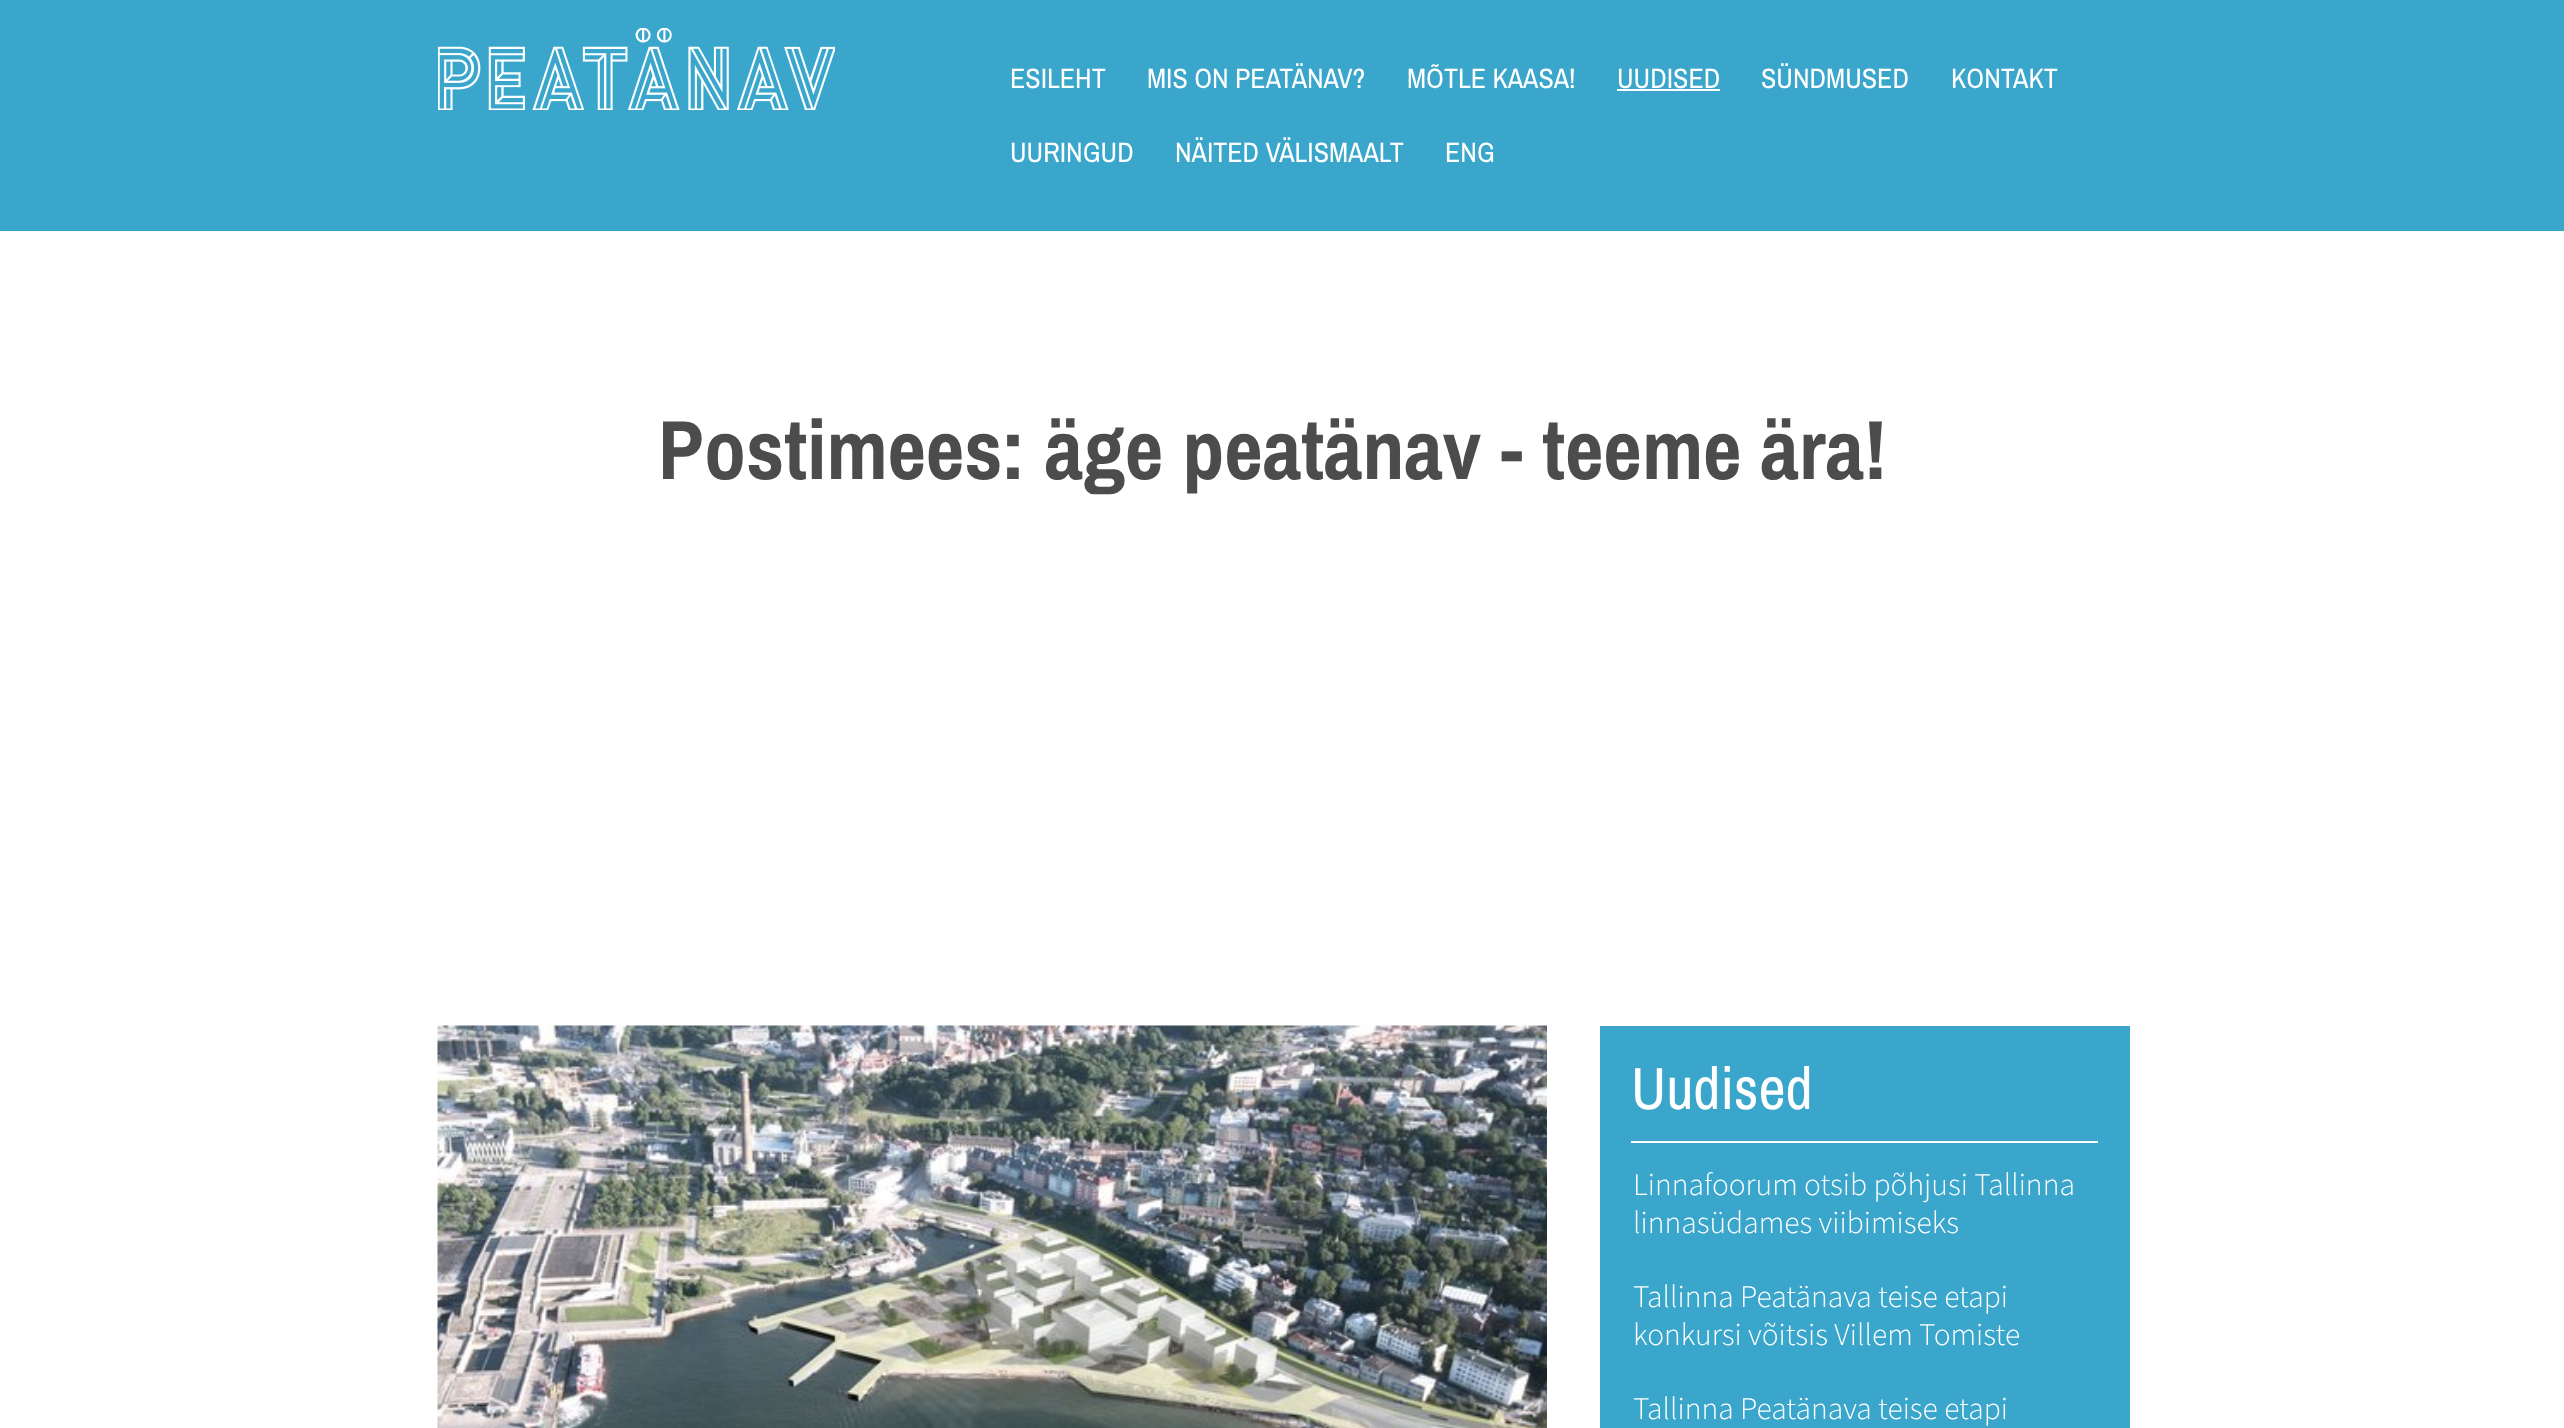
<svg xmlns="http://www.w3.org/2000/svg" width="2564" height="1428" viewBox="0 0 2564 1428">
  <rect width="100%" height="100%" fill="#fff"/>
  <path d="M0 0h2564v231H0z" fill="#3aa6cb"/>
  <image x="438" y="28" width="397" height="82" href="img/1.png"/>
  <path d="M1617 89h103v2H1617z" fill="#fff"/>
  <image x="437" y="1025" width="1110" height="403" href="img/2.png"/>
  <path d="M1600 1026h530v402H1600z" fill="#3aa6cb"/>
  <path d="M1631 1141h467v2H1631z" fill="#fff"/>
  <g font-family="Archivo Narrow" font-size="28" fill="#fff">
    <text x="1010" y="88">ESILEHT</text>
    <text x="1147" y="88">MIS ON PEATÄNAV?</text>
    <text x="1407" y="88">MÕTLE KAASA!</text>
    <text x="1617" y="88">UUDISED</text>
    <text x="1761" y="88">SÜNDMUSED</text>
    <text x="1951" y="88">KONTAKT</text>
    <text x="1010" y="162">UURINGUD</text>
    <text x="1175" y="162">NÄITED VÄLISMAALT</text>
    <text x="1445" y="162">ENG</text>
  </g>
  <text x="658" y="479" font-family="Archivo Narrow" font-size="84" font-weight="bold" fill="#4c4c4c">Postimees: äge peatänav - teeme ära!</text>
  <text x="1631" y="1109" font-family="Archivo Narrow" font-size="59.5" fill="#fff">Uudised</text>
  <g font-family="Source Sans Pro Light" font-size="31.5" font-weight="300" fill="#fff">
    <text x="1633" y="1195">Linnafoorum otsib põhjusi Tallinna</text>
    <text x="1633" y="1233">linnasüdames viibimiseks</text>
    <text x="1633" y="1307">Tallinna Peatänava teise etapi</text>
    <text x="1633" y="1345">konkursi võitsis Villem Tomiste</text>
    <text x="1633" y="1419">Tallinna Peatänava teise etapi</text>
  </g>
</svg>
